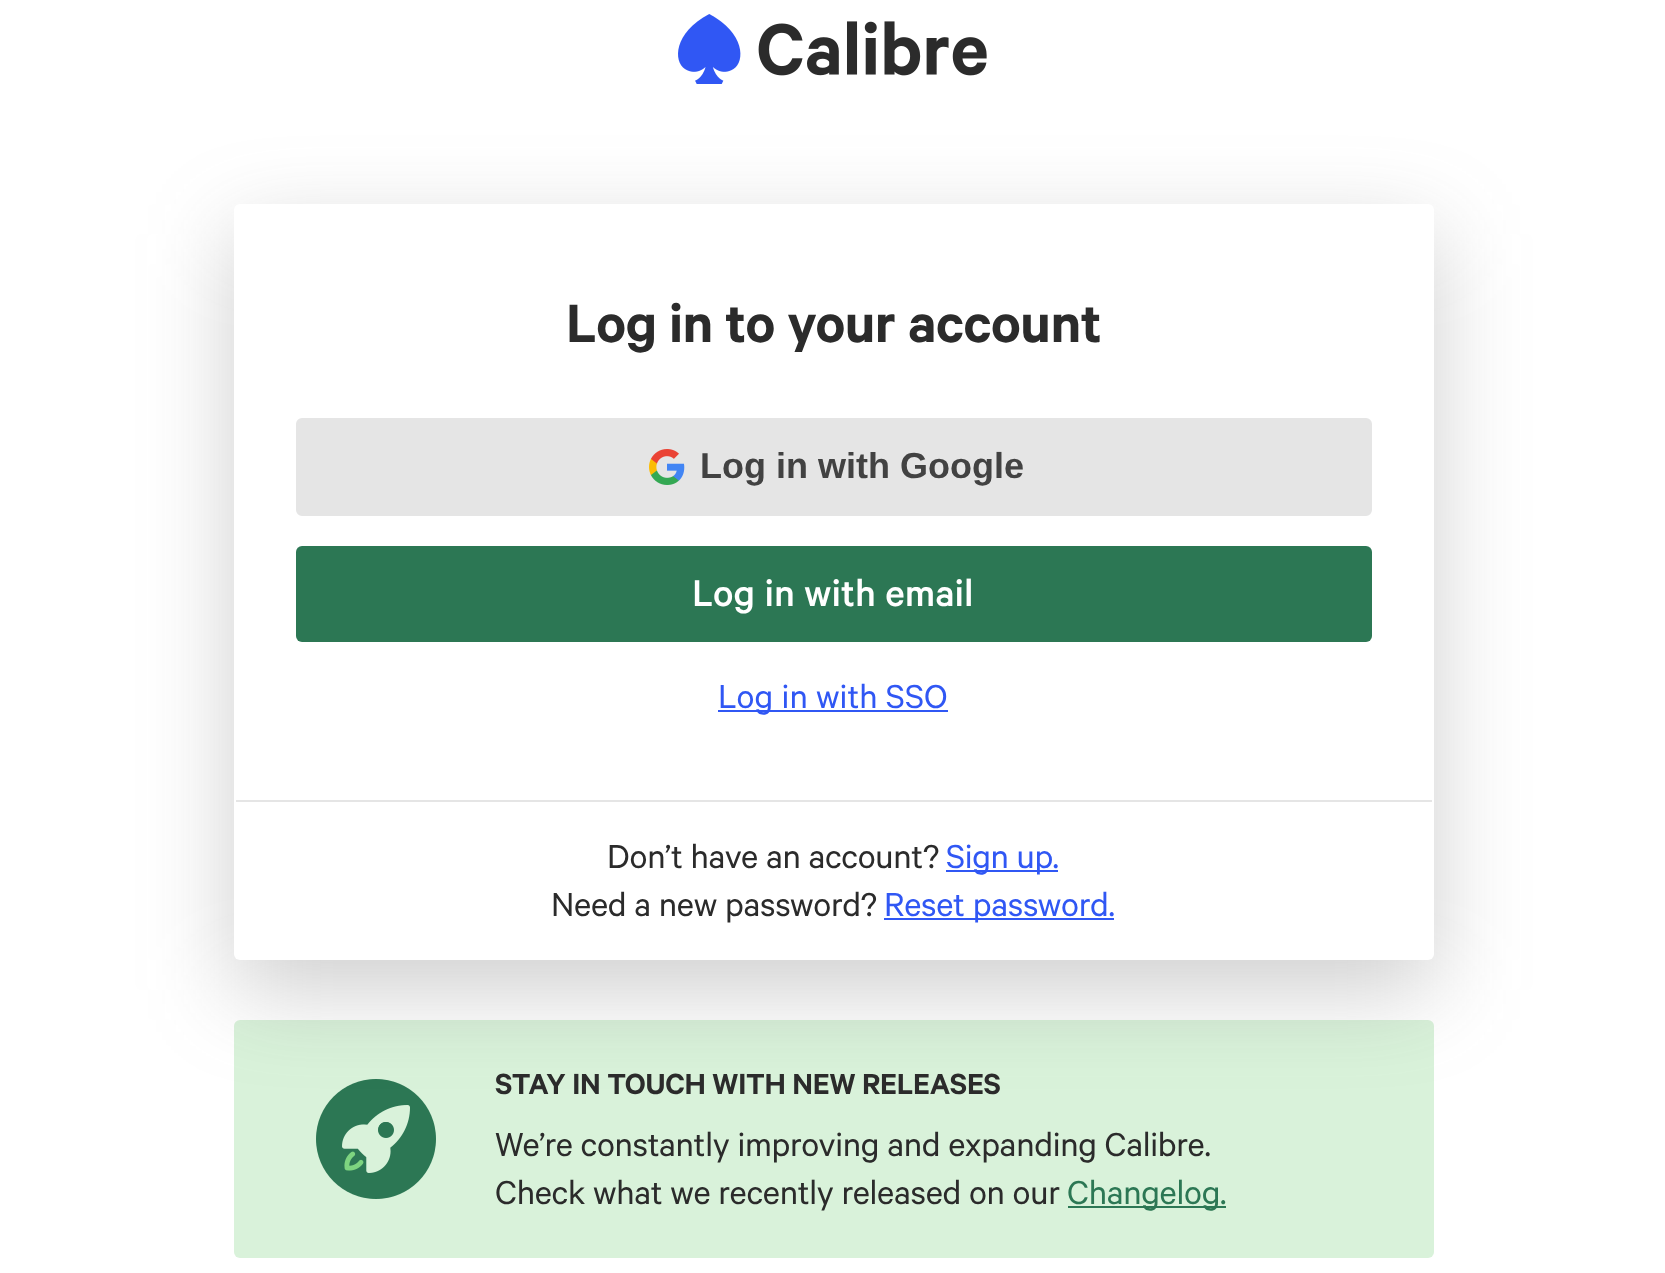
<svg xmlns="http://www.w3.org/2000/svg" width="1665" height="1273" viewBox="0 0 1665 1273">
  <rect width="100%" height="100%" fill="#fff"/>
  <image x="678" y="14" width="309" height="70" href="img/1.png"/>
  <rect x="234" y="1020" width="1200" height="238" rx="6" fill="#d9f2da"/>
  <image x="316" y="1079" width="120" height="120" href="img/3.png"/>
  <rect x="234" y="234" width="1200" height="756" rx="6" fill="#5e5e5e4d" filter="blur(45px)"/>
  <rect x="234" y="204" width="1200" height="756" rx="6" fill="#fff"/>
  <rect x="297" y="419" width="1074" height="96" rx="5" fill="#e5e5e5" stroke="#e5e5e5" stroke-width="2"/>
  <image x="649" y="449" width="36" height="36" href="img/2.png"/>
  <rect x="296" y="546" width="1076" height="96" rx="6" fill="#2c7754"/>
  <path d="M718 710h230v2H718z" fill="#3057f4"/>
  <path d="M236 800h1196v2H236z" fill="#e5e5e5"/>
  <path d="M946 870h112v2H946z" fill="#3057f4"/>
  <path d="M884 918h230v2H884z" fill="#3057f4"/>
  <path d="M1068 1206h158v2H1068z" fill="#2c7754"/>
  <text x="566" y="342" font-family="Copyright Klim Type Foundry" font-size="52" font-weight="600" letter-spacing="-0.5" fill="#2b2b2b">Log in to your account</text>
  <text x="700" y="478" font-family="Liberation Sans" font-size="36" font-weight="bold" fill="#424242">Log in with Google</text>
  <text x="692" y="606" font-family="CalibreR" font-size="36" font-weight="500" fill="#fff">Log in with email</text>
  <text x="718" y="708" font-family="Copyright Klim Type Foundry" font-size="32" fill="#3057f4">Log in with SSO</text>
  <text x="607" y="868" font-family="Copyright Klim Type Foundry" font-size="32" letter-spacing="-0.3" fill="#2b2b2b">Don’t have an account?</text>
  <text x="946" y="868" font-family="Copyright Klim Type Foundry" font-size="32" letter-spacing="-0.3" fill="#3057f4">Sign up.</text>
  <text x="551" y="916" font-family="Copyright Klim Type Foundry" font-size="32" letter-spacing="-0.3" fill="#2b2b2b">Need a new password?</text>
  <text x="884" y="916" font-family="Copyright Klim Type Foundry" font-size="32" letter-spacing="-0.3" fill="#3057f4">Reset password.</text>
  <text x="495" y="1094" font-family="Copyright Klim Type Foundry" font-size="28" font-weight="600" letter-spacing="-0.25" fill="#2b2b2b">STAY IN TOUCH WITH NEW RELEASES</text>
  <g font-family="Copyright Klim Type Foundry" font-size="32" letter-spacing="-0.3" fill="#2b2b2b">
    <text x="495" y="1156">We’re constantly improving and expanding Calibre.</text>
    <text x="495" y="1204">Check what we recently released on our</text>
  </g>
  <text x="1067" y="1204" font-family="Copyright Klim Type Foundry" font-size="32" letter-spacing="-0.3" fill="#2c7754">Changelog.</text>
</svg>
